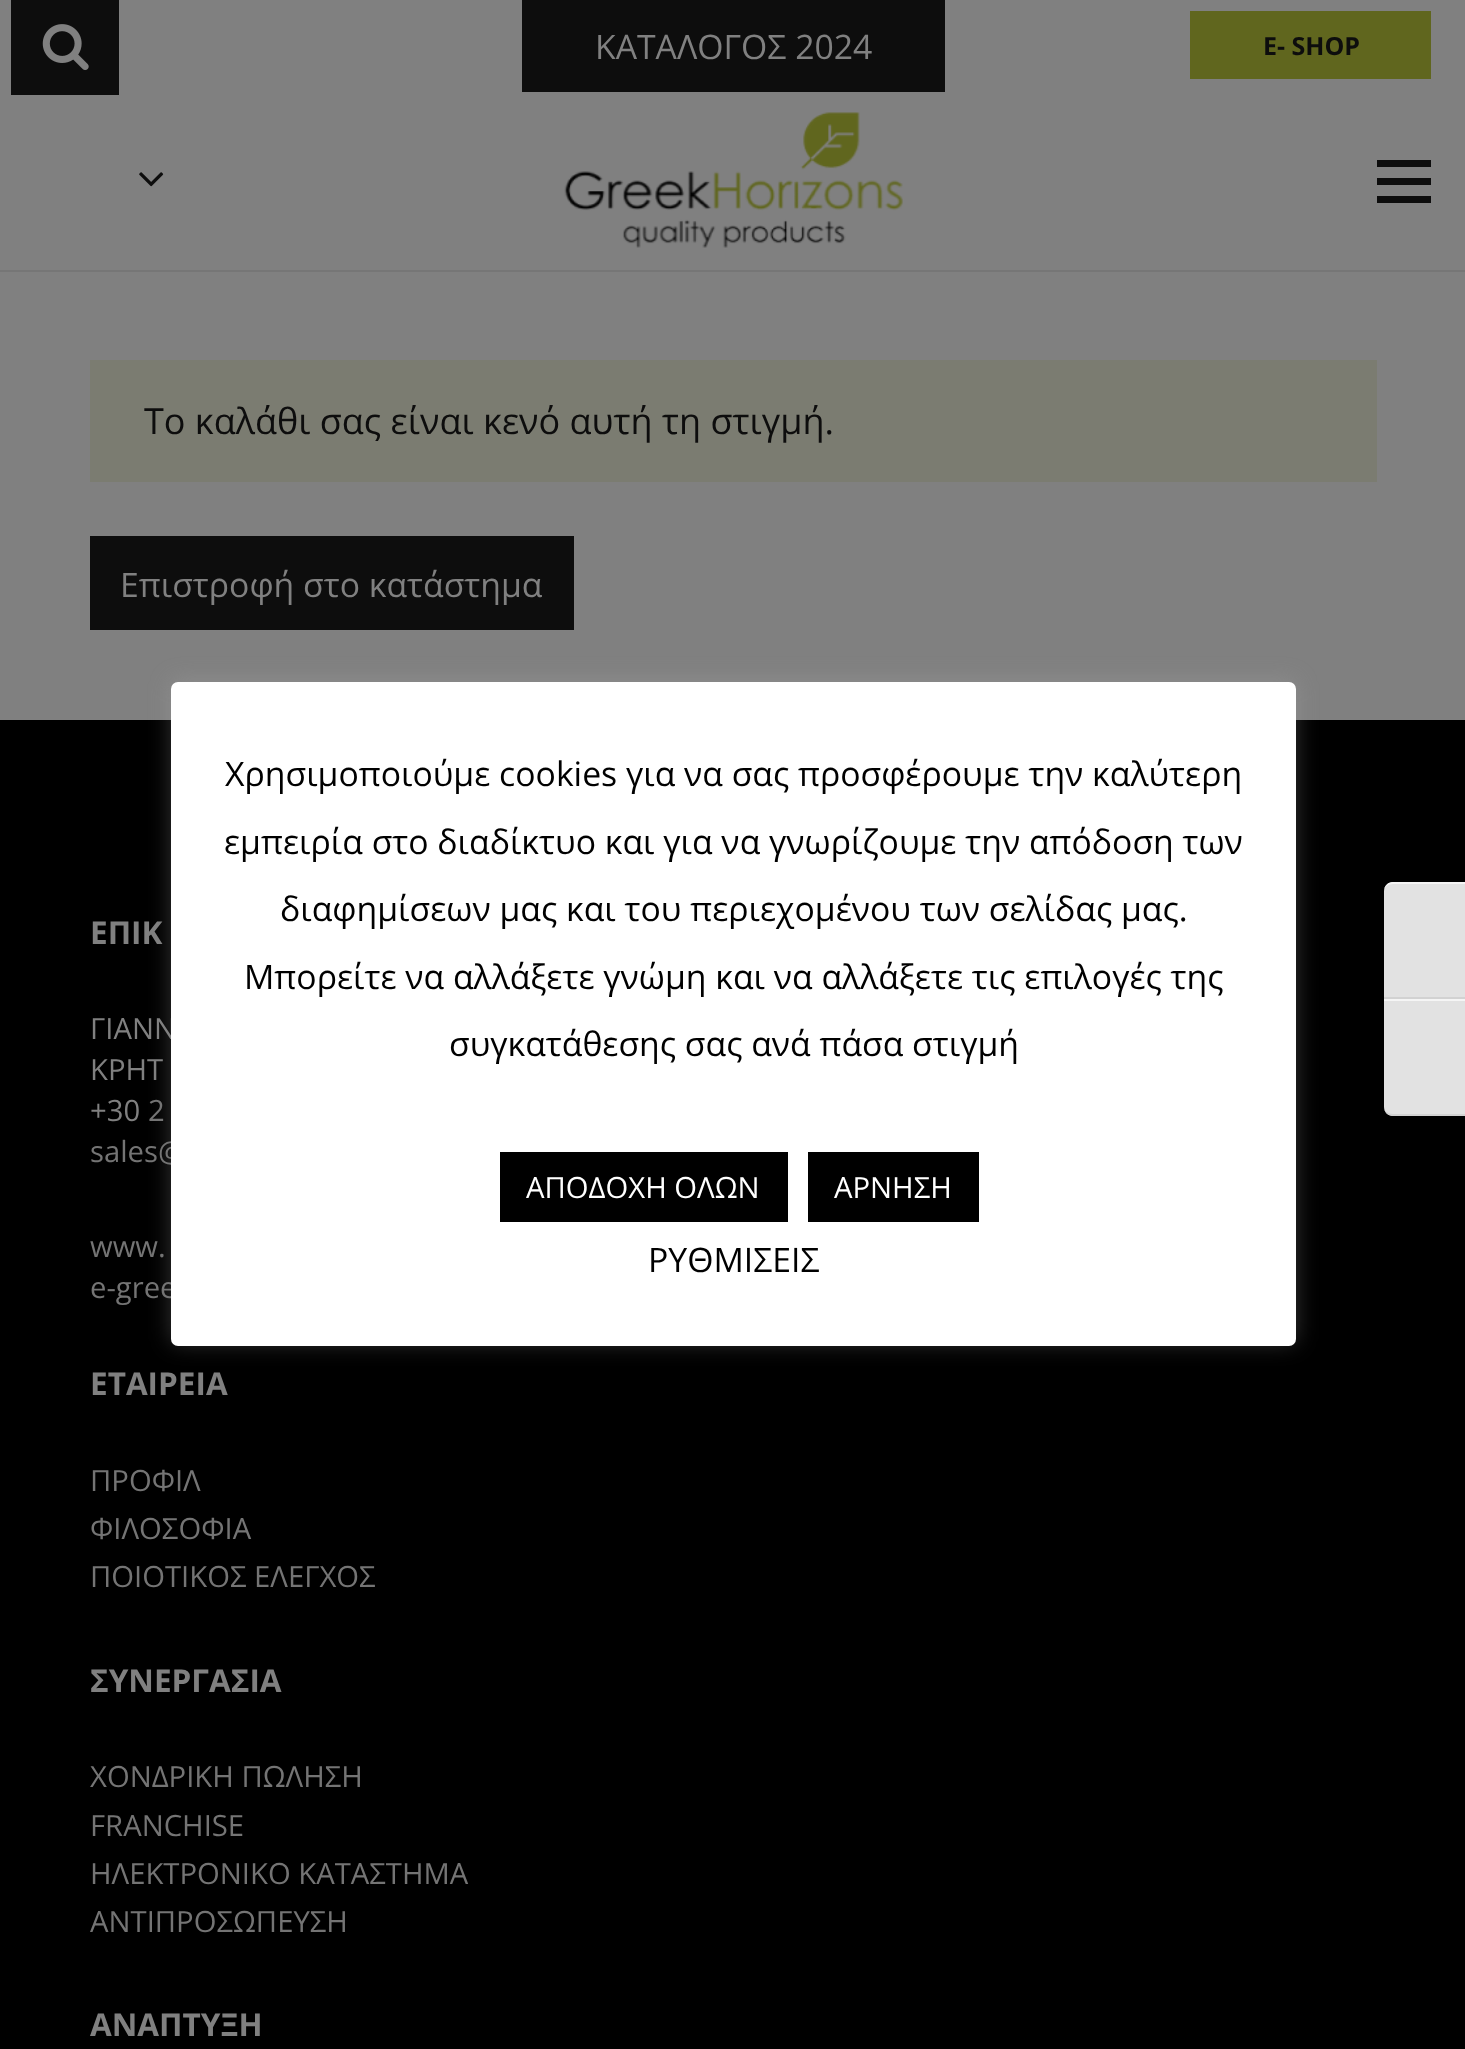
<svg xmlns="http://www.w3.org/2000/svg" width="1465" height="2049" viewBox="0 0 1465 2049">
  <rect width="100%" height="100%" fill="#808080"/>
  <path d="M11 0h108v95H11z" fill="#0d0d0d"/>
  <image x="42" y="24" width="47" height="47" href="img/1.png"/>
  <path d="M522 0h423v92H522z" fill="#0d0d0d"/>
  <path d="M1190 11h241v68H1190z" fill="#60661e"/>
  <path d="M0 270h1465v2H0z" fill="#767676"/>
  <image x="139" y="172" width="25" height="15" href="img/2.png"/>
  <image x="564" y="112" width="339" height="136" href="img/3.png"/>
  <path d="M1377 178h54v7H1377z" fill="#0d0d0d"/>
  <path d="M1377 160h54v7H1377z" fill="#0d0d0d"/>
  <path d="M1377 196h54v7H1377z" fill="#0d0d0d"/>
  <path d="M90 360h1287v122H90z" fill="#7b7c71"/>
  <path d="M90 536h484v94H90z" fill="#0d0d0d"/>
  <path d="M0 720h1465v1329H0z" fill="#000"/>
  <rect x="171" y="680" width="1125" height="663" rx="7" fill="#acabab4d" filter="blur(11px)"/>
  <path d="M1393 882H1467V999H1384V891C1384 886 1388 882 1393 882Z" fill="#e2e2e2"/>
  <path d="M1393 882C1388 882 1384 886 1384 891C1384 887 1388 884 1393 884H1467V882Z" fill="#f5f5f5"/>
  <path d="M1384 997h81v2H1384z" fill="#d2d2d2"/>
  <path d="M1384 999H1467V1116H1393C1388 1116 1384 1112 1384 1107Z" fill="#e2e2e2"/>
  <path d="M1384 999h81v2H1384z" fill="#f5f5f5"/>
  <path d="M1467 1116V1114H1393C1388 1114 1384 1111 1384 1107C1384 1112 1388 1116 1393 1116Z" fill="#d2d2d2"/>
  <text x="595" y="59" font-family="Open Sans" font-size="33.75" fill="#808080">ΚΑΤΑΛΟΓΟΣ 2024</text>
  <text x="1263" y="55" font-family="Open Sans" font-size="25" font-weight="bold" fill="#0d0d0d">E- SHOP</text>
  <text x="144" y="434" font-family="Open Sans" font-size="36" fill="#0d0d0d">Το καλάθι σας είναι κενό αυτή τη στιγμή.</text>
  <text x="120" y="597" font-family="Open Sans" font-size="33.75" fill="#808080">Επιστροφή στο κατάστημα</text>
  <text x="90" y="944" font-family="Open Sans" font-size="31.5" font-weight="bold" fill="#808080">ΕΠΙΚ</text>
  <g font-family="Open Sans" font-size="29.25" fill="#808080">
    <text x="90" y="1039">ΓΙΑΝΝ</text>
    <text x="90" y="1080">ΚΡΗΤ</text>
    <text x="90" y="1121">+30</text>
  </g>
  <g font-family="Open Sans" font-size="29.25" fill="#747474">
    <text x="148" y="1121">2</text>
    <text x="90" y="1162">sales@</text>
    <text x="90" y="1257">www.</text>
    <text x="90" y="1298">e-gree</text>
  </g>
  <rect x="171" y="682" width="1125" height="664" rx="7" fill="#fff"/>
  <path d="M808 1152h171v70H808z" fill="#000"/>
  <text x="834" y="1198" font-family="Open Sans" font-size="29.25" fill="#fff">ΑΡΝΗΣΗ</text>
  <path d="M500 1152h288v70H500z" fill="#000"/>
  <text x="526" y="1198" font-family="Open Sans" font-size="29.25" fill="#fff">ΑΠΟΔΟΧΗ ΟΛΩΝ</text>
  <g font-family="Open Sans" font-size="33.75" fill="#000">
    <text x="648" y="1272">ΡΥΘΜΙΣΕΙΣ</text>
    <text x="449" y="1056">συγκατάθεσης σας ανά πάσα στιγμή</text>
    <text x="244" y="989">Μπορείτε να αλλάξετε γνώμη και να αλλάξετε τις επιλογές της</text>
    <text x="280" y="921">διαφημίσεων μας και του περιεχομένου των σελίδας μας.</text>
    <text x="224" y="854">εμπειρία στο διαδίκτυο και για να γνωρίζουμε την απόδοση των</text>
    <text x="225" y="786">Χρησιμοποιούμε cookies για να σας προσφέρουμε την καλύτερη</text>
  </g>
  <text x="90" y="1395" font-family="Open Sans" font-size="31.5" font-weight="bold" fill="#808080">ΕΤΑΙΡΕΙΑ</text>
  <g font-family="Open Sans" font-size="29.25" fill="#747474">
    <text x="90" y="1491">ΠΡΟΦΙΛ</text>
    <text x="90" y="1539">ΦΙΛΟΣΟΦΙΑ</text>
    <text x="90" y="1587">ΠΟΙΟΤΙΚΟΣ ΕΛΕΓΧΟΣ</text>
  </g>
  <text x="90" y="1692" font-family="Open Sans" font-size="31.5" font-weight="bold" fill="#808080">ΣΥΝΕΡΓΑΣΙΑ</text>
  <g font-family="Open Sans" font-size="29.25" fill="#747474">
    <text x="90" y="1787">ΧΟΝΔΡΙΚΗ ΠΩΛΗΣΗ</text>
    <text x="90" y="1836">FRANCHISE</text>
    <text x="90" y="1884">ΗΛΕΚΤΡΟΝΙΚΟ ΚΑΤΑΣΤΗΜΑ</text>
    <text x="90" y="1932">ΑΝΤΙΠΡΟΣΩΠΕΥΣΗ</text>
  </g>
  <text x="90" y="2036" font-family="Open Sans" font-size="31.5" font-weight="bold" fill="#808080">ΑΝΑΠΤΥΞΗ</text>
</svg>
